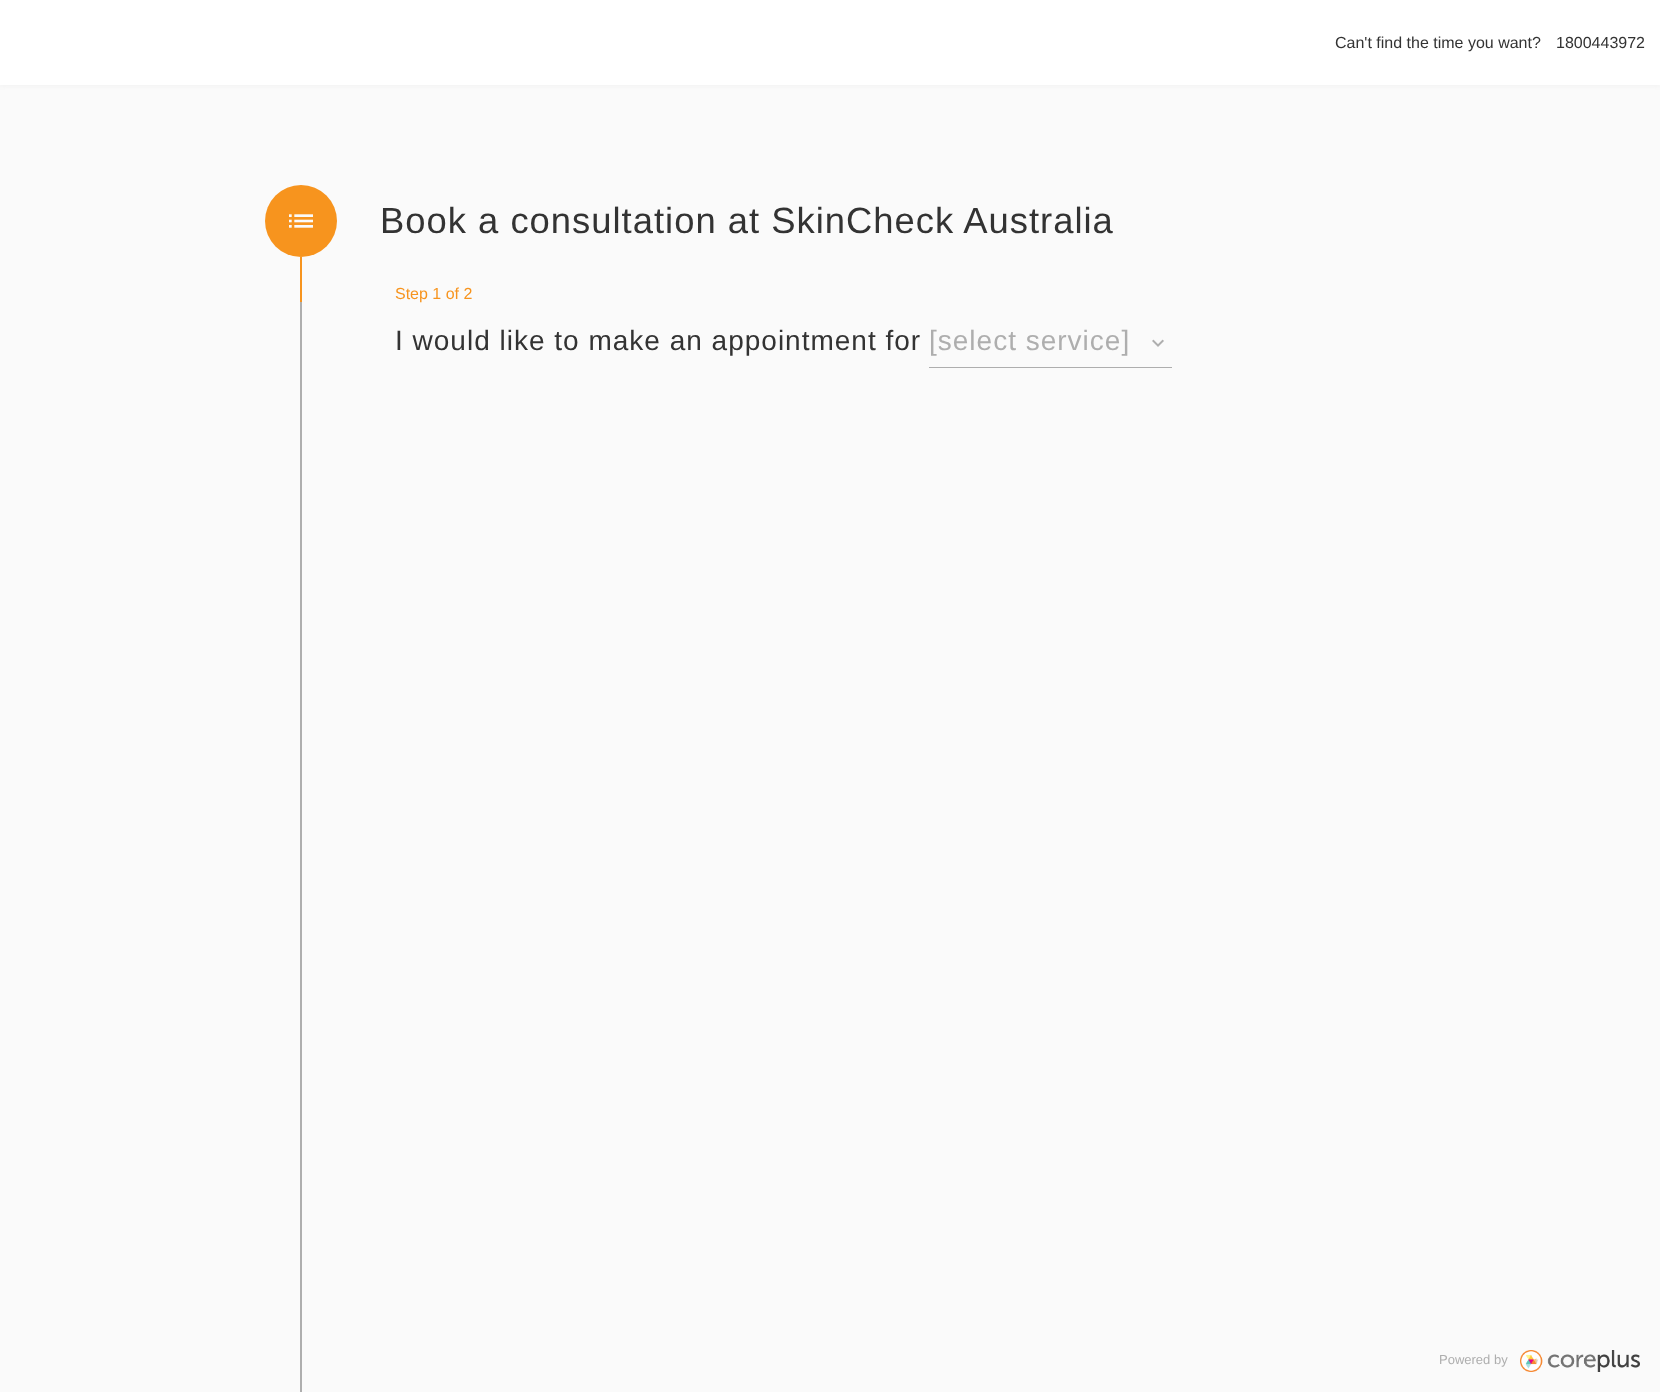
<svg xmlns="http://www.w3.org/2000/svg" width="1660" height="1392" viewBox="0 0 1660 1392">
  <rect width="100%" height="100%" fill="#fafafa"/>
  <path d="M0 0h1660v85H0z" fill="#eee" filter="blur(2.5px)"/>
  <path d="M0 0h1660v85H0z" fill="#fff"/>
  <circle cx="301" cy="221" r="36" fill="#f7941e"/>
  <image x="289" y="214" width="24" height="14" href="img/1.png"/>
  <path d="M300 302h2v1090H300z" fill="#aeaeae"/>
  <path d="M300 257h2v45H300z" fill="#f7941e"/>
  <image x="1152" y="339" width="12" height="8" href="img/2.png"/>
  <path d="M929 367h243v1H929z" fill="#aeaeae"/>
  <image x="1520" y="1350" width="120" height="22" href="img/3.png"/>
  <g font-family="Liberation Sans" font-size="16" fill="#333">
    <text x="1335" y="48">Can't find the time you want?</text>
    <text x="1556" y="48">1800443972</text>
  </g>
  <text x="380" y="233" font-family="Liberation Sans" font-size="36.4" letter-spacing="1" fill="#333">Book a consultation at SkinCheck Australia</text>
  <text x="395" y="299" font-family="Liberation Sans" font-size="16" fill="#f7941e">Step 1 of 2</text>
  <text x="395" y="350" font-family="Liberation Sans" font-size="28" letter-spacing="1" fill="#333">I would like to make an appointment for</text>
  <text x="929" y="350" font-family="Liberation Sans" font-size="28" letter-spacing="1" fill="#aeaeae">[select service]</text>
  <text x="1439" y="1364" font-family="Liberation Sans" font-size="13" fill="#aeaeae">Powered by</text>
</svg>
